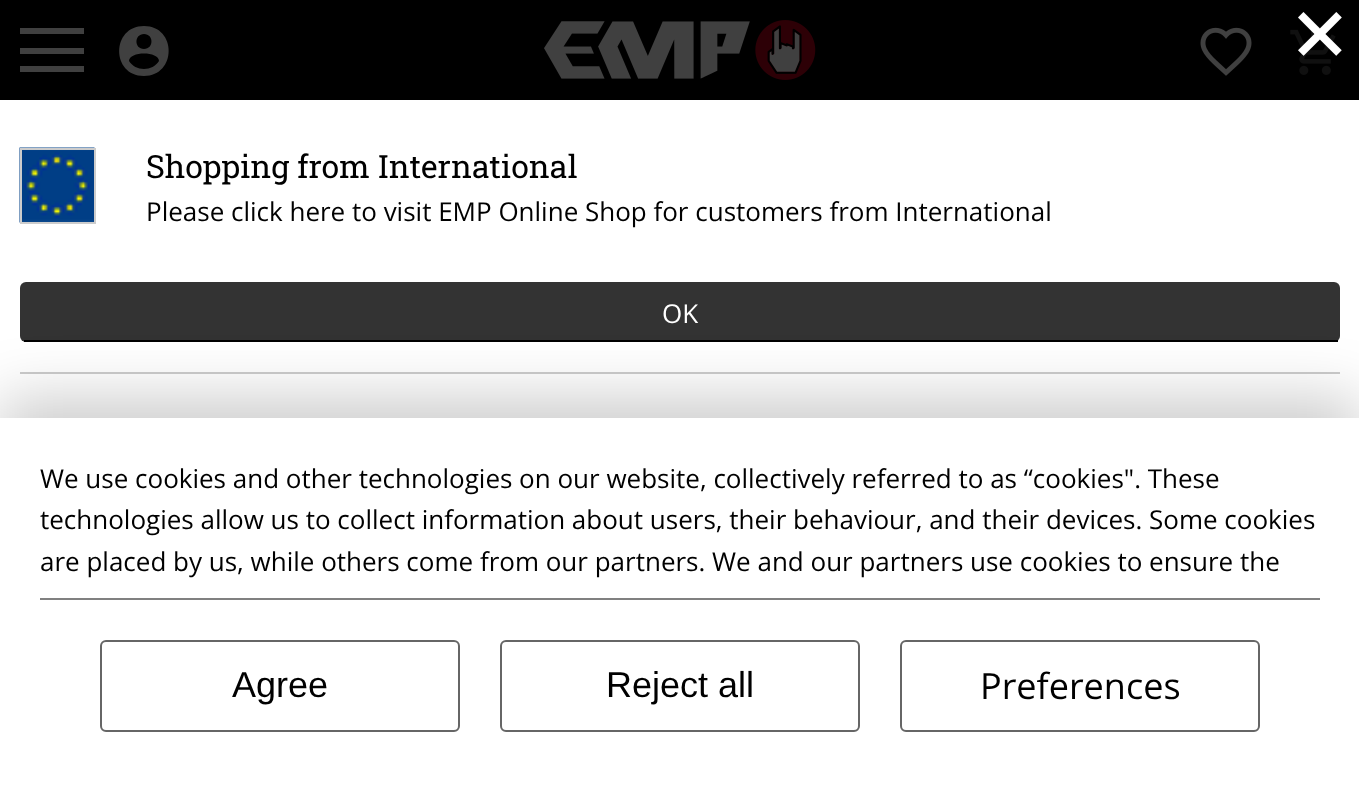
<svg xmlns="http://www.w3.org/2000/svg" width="1359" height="792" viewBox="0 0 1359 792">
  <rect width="100%" height="100%" fill="#000"/>
  <path d="M0 100h1359v318H0z" fill="#fff"/>
  <image x="19" y="147" width="76" height="76" href="img/1.png"/>
  <path d="M21 149h74v74H21z" fill="none" stroke="#ccc" stroke-width="2"/>
  <rect x="20" y="282" width="1320" height="60" rx="6" fill="#333"/>
  <path d="M24 340h1314v2H24z" fill="#000"/>
  <path d="M20 372h1320v2H20z" fill="#ccc"/>
  <path d="M20 28h64v6H20z" fill="#404040"/>
  <path d="M20 48h64v6H20z" fill="#404040"/>
  <path d="M20 66h64v6H20z" fill="#404040"/>
  <path d="M144 26C111 26 111 76 144 76C177 76 177 26 144 26ZM144 34C154 34 154 49 144 49C134 49 134 34 144 34ZM144 69C138 69 132 66 129 61C129 51 159 51 159 61C156 66 150 69 144 69Z" fill="#404040"/>
  <image x="544" y="20" width="272" height="60" href="img/2.png"/>
  <image x="1200" y="27" width="52" height="49" href="img/3.png"/>
  <image x="1290" y="29" width="46" height="46" href="img/4.png"/>
  <path d="M0 398h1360v374H0z" fill="#00000033" filter="blur(30px)"/>
  <path d="M0 418h1359v374H0z" fill="#fff"/>
  <path d="M40 598h1280v2H40z" fill="#808080"/>
  <rect x="101" y="641" width="358" height="90" rx="5" fill="none" stroke="#666" stroke-width="2"/>
  <rect x="501" y="641" width="358" height="90" rx="5" fill="none" stroke="#666" stroke-width="2"/>
  <rect x="901" y="641" width="358" height="90" rx="5" fill="none" stroke="#666" stroke-width="2"/>
  <text x="146" y="178" font-family="Roboto Slab" font-size="32" fill="#000">Shopping from International</text>
  <text x="146" y="221" font-family="Open Sans" font-size="26" fill="#000">Please click here to visit EMP Online Shop for customers from International</text>
  <text x="662" y="323" font-family="Open Sans" font-size="26" fill="#fff">OK</text>
  <text x="1310" y="40" font-family="Open Sans" font-size="19" font-weight="bold" fill="#101010">0</text>
  <text x="1291" y="64" font-family="DejaVu Sans Mono" font-size="96" fill="#fff">×</text>
  <g font-family="Open Sans" font-size="26" fill="#000">
    <text x="40" y="488">We use cookies and other technologies on our website, collectively referred to as “cookies". These</text>
    <text x="40" y="529">technologies allow us to collect information about users, their behaviour, and their devices. Some cookies</text>
    <text x="40" y="571">are placed by us, while others come from our partners. We and our partners use cookies to ensure the</text>
  </g>
  <g font-family="Liberation Sans" font-size="36" fill="#000">
    <text x="232" y="697">Agree</text>
    <text x="606" y="697">Reject all</text>
  </g>
  <text x="980" y="699" font-family="Open Sans" font-size="36" fill="#000">Preferences</text>
</svg>
